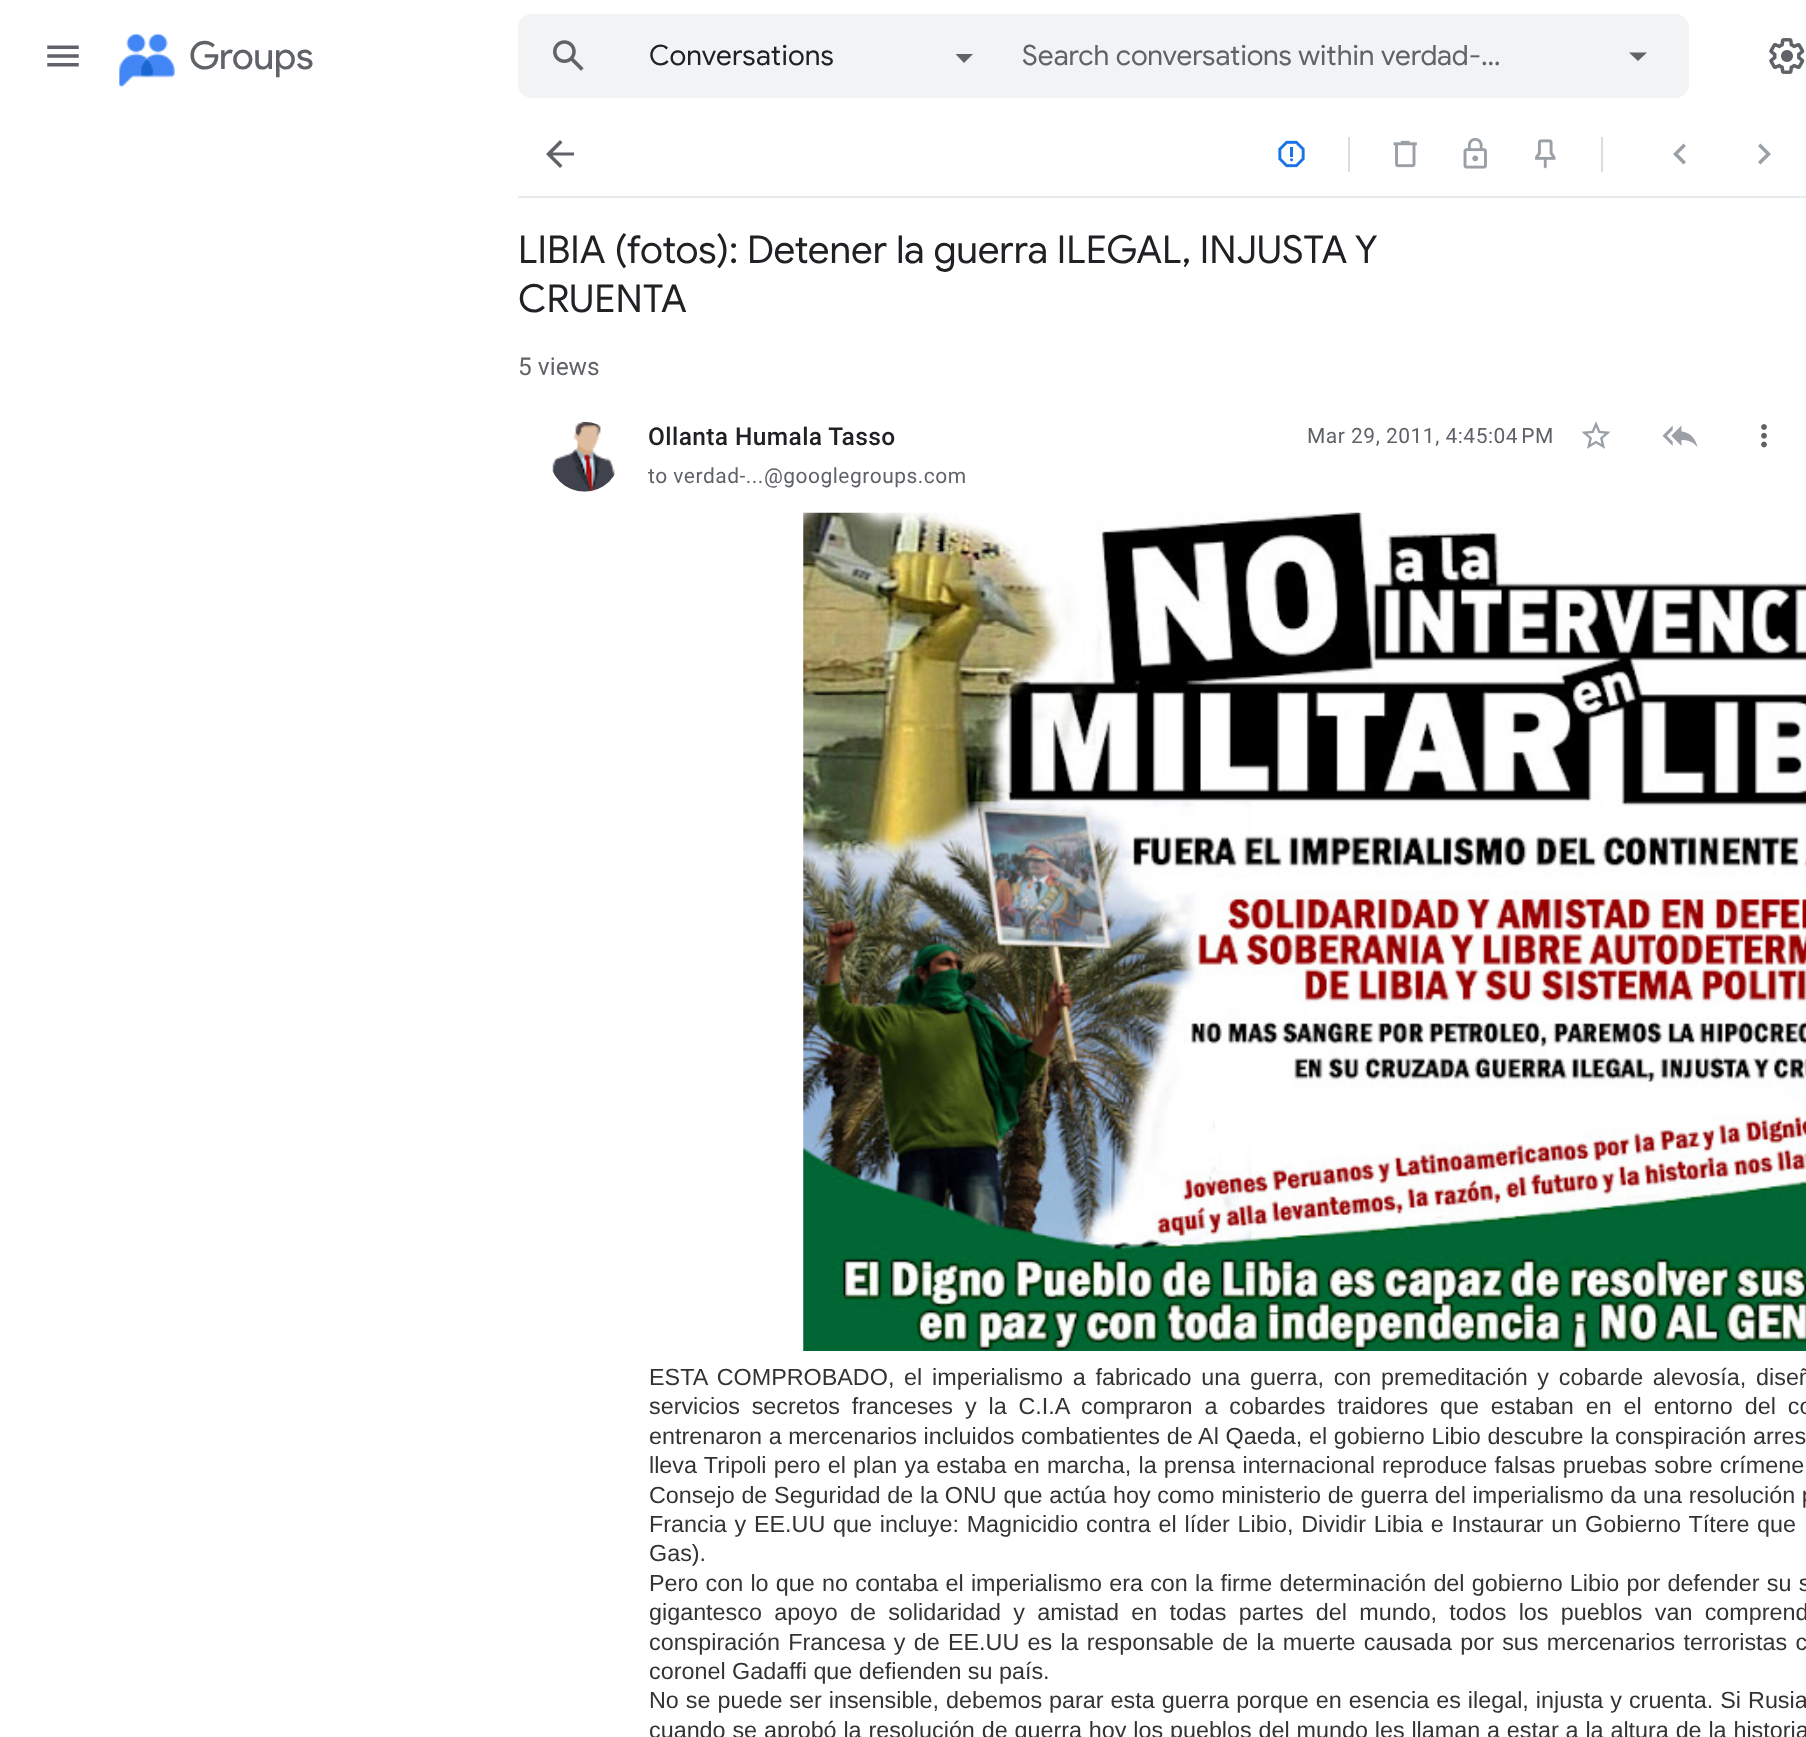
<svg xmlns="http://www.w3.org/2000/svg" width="1806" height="1737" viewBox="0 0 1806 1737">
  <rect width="100%" height="100%" fill="#fff"/>
  <image x="47" y="45" width="32" height="22" href="img/1.png"/>
  <image x="119" y="33" width="56" height="55" href="img/2.png"/>
  <rect x="518" y="14" width="1171" height="84" rx="14" fill="#f1f3f4"/>
  <image x="553" y="40" width="31" height="31" href="img/3.png"/>
  <path d="M955.5 54H973L964 63Z" fill="#5f6368"/>
  <path d="M1629 52.5L1638 61L1647 52.5Z" fill="#5f6368"/>
  <image x="1769" y="38" width="36" height="36" href="img/4.png"/>
  <path d="M518 196h1288v2H518z" fill="#e8eaed"/>
  <path d="M574 152.5V155.5H552.5L562.5 165.5L560 168L546 154L560 140L562.5 142.5L552.5 152.5Z" fill="#5f6368"/>
  <image x="1278" y="140" width="27" height="28" href="img/5.png"/>
  <path d="M1348 137h2v35H1348z" fill="#ddd"/>
  <image x="1393" y="140" width="24" height="28" href="img/6.png"/>
  <image x="1463" y="138" width="24" height="31" href="img/7.png"/>
  <image x="1535" y="139" width="21" height="30" href="img/8.png"/>
  <path d="M1601 137h2v35H1601z" fill="#ddd"/>
  <path d="M1686 146L1678 154L1686 162L1683.5 164.5L1673 154L1683.5 143.5Z" fill="#9aa0a6"/>
  <path d="M1760.5 143.5L1771 154L1760.5 164.5L1758 162L1766 154L1758 146Z" fill="#9aa0a6"/>
  <image x="552" y="421" width="63" height="71" href="img/9.png"/>
  <image x="1581" y="421" width="30" height="28" href="img/10.png"/>
  <image x="1662" y="425" width="36" height="23" href="img/11.png"/>
  <image x="1761" y="424" width="6" height="24" href="img/12.png"/>
  <image x="803" y="512" width="1003" height="839" href="img/13.png"/>
  <text x="189" y="69" font-family="Product Sans" font-size="38.5" fill="#5f6368">Groups</text>
  <text x="649" y="65" font-family="Google Sans" font-size="28" letter-spacing="0.3" fill="#202124">Conversations</text>
  <text x="1022" y="65" font-family="Google Sans" font-size="28" fill="#5f6368">Search conversations within verdad-…</text>
  <g font-family="Google Sans" font-size="38.5" fill="#202124">
    <text x="518" y="263">LIBIA (fotos): Detener la guerra ILEGAL, INJUSTA Y</text>
    <text x="518" y="312">CRUENTA</text>
  </g>
  <text x="518" y="375" font-family="Roboto" font-size="24.5" fill="#5f6368">5 views</text>
  <text x="648" y="445" font-family="Roboto" font-size="24.5" font-weight="500" letter-spacing="0.4" fill="#202124">Ollanta Humala Tasso</text>
  <g font-family="Roboto" font-size="21" letter-spacing="0.5" fill="#5f6368">
    <text x="1307" y="443">Mar 29, 2011, 4:45:04 PM</text>
    <text x="648" y="483">to verdad-...@googlegroups.com</text>
  </g>
  <g font-family="Liberation Sans" font-size="23.35" fill="#333">
    <text x="649" y="1385" word-spacing="3.25">ESTA COMPROBADO, el imperialismo a fabricado una guerra, con premeditación y cobarde alevosía, diseñ</text>
    <text x="649" y="1414" word-spacing="5.4">servicios secretos franceses y la C.I.A compraron a cobardes traidores que estaban en el entorno del co</text>
    <text x="649" y="1444" word-spacing="0.25">entrenaron a mercenarios incluidos combatientes de Al Qaeda, el gobierno Libio descubre la conspiración arres</text>
    <text x="649" y="1473" word-spacing="0.75">lleva Tripoli pero el plan ya estaba en marcha, la prensa internacional reproduce falsas pruebas sobre crímene</text>
    <text x="649" y="1503" word-spacing="0.25">Consejo de Seguridad de la ONU que actúa hoy como ministerio de guerra del imperialismo da una resolución p</text>
    <text x="649" y="1532" word-spacing="1.25">Francia y EE.UU que incluye: Magnicidio contra el líder Libio, Dividir Libia e Instaurar un Gobierno Títere que</text>
    <text x="649" y="1561">Gas).</text>
    <text x="649" y="1591" word-spacing="0.75">Pero con lo que no contaba el imperialismo era con la firme determinación del gobierno Libio por defender su s</text>
    <text x="649" y="1620" word-spacing="5.75">gigantesco apoyo de solidaridad y amistad en todas partes del mundo, todos los pueblos van comprend</text>
    <text x="649" y="1650" word-spacing="1.75">conspiración Francesa y de EE.UU es la responsable de la muerte causada por sus mercenarios terroristas c</text>
    <text x="649" y="1679">coronel Gadaffi que defienden su país.</text>
    <text x="649" y="1708" word-spacing="0.5">No se puede ser insensible, debemos parar esta guerra porque en esencia es ilegal, injusta y cruenta. Si Rusia</text>
    <text x="649" y="1738" word-spacing="0.35">cuando se aprobó la resolución de guerra hoy los pueblos del mundo les llaman a estar a la altura de la historia</text>
  </g>
</svg>
